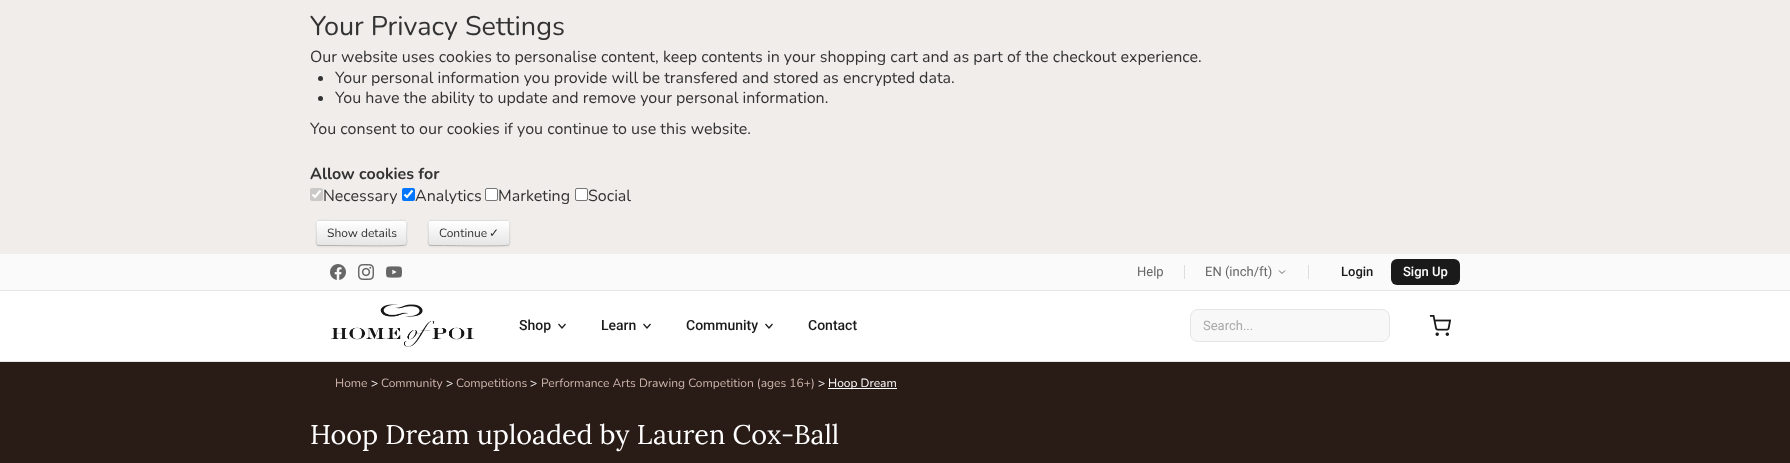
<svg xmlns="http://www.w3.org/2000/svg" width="1790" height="463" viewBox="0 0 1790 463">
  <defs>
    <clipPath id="clip1"><rect x="316" y="220" width="91" height="26" rx="3"/></clipPath>
    <linearGradient id="g1" gradientUnits="userSpaceOnUse" x1="362" y1="221" x2="362" y2="245"><stop offset="0" stop-color="#fff"/><stop offset="1" stop-color="#e6e6e6"/></linearGradient>
    <clipPath id="clip2"><rect x="428" y="220" width="82" height="26" rx="3"/></clipPath>
    <linearGradient id="g2" gradientUnits="userSpaceOnUse" x1="469" y1="221" x2="469" y2="245"><stop offset="0" stop-color="#fff"/><stop offset="1" stop-color="#e6e6e6"/></linearGradient>
  </defs>
  <rect width="100%" height="100%" fill="#fff"/>
  <path d="M0 0h1790v254H0z" fill="#f0edeb"/>
  <circle cx="320.5" cy="78.5" r="2.5" fill="#333"/>
  <circle cx="320.5" cy="98.5" r="2.5" fill="#333"/>
  <rect x="310" y="188" width="13" height="13" rx="2" fill="#cbc9c8"/>
  <path d="M312.5 194.5L315 197L320.5 190.5" fill="none" stroke="#fff" stroke-width="2.1"/>
  <rect x="402" y="188" width="13" height="13" rx="2" fill="#0075ff"/>
  <path d="M404.5 194.5L407 197L412.5 190.5" fill="none" stroke="#fff" stroke-width="2.1"/>
  <rect x="485.5" y="188.5" width="12" height="12" rx="1.5" fill="#fff" stroke="#767676"/>
  <rect x="575.5" y="188.5" width="12" height="12" rx="1.5" fill="#fff" stroke="#767676"/>
  <rect x="316" y="221" width="91" height="26" rx="3" fill="#0000000d" filter="blur(1px)"/>
  <rect x="316" y="220" width="91" height="26" rx="3" fill="#f5f5f5"/>
  <g clip-path="url(#clip1)">
    <path d="M316 221h91v24H316z" fill="url(#g1)"/>
  </g>
  <path d="M406 245H405.5C403.5 246.5 340.5 245.5 333 245.5H319L317 245" fill="none" stroke="#b3b3b3"/>
  <path d="M317 245C315.5 243 316.5 238.5 316.5 236.5C316.5 217 313 220.5 333 220.5H390C410 220.5 406.5 217 406.5 236.5C406.5 238.5 407.5 243 406 245" fill="none" stroke="#0000001a"/>
  <rect x="428" y="221" width="82" height="26" rx="3" fill="#0000000d" filter="blur(1px)"/>
  <rect x="428" y="220" width="82" height="26" rx="3" fill="#f5f5f5"/>
  <g clip-path="url(#clip2)">
    <path d="M428 221h82v24H428z" fill="url(#g2)"/>
  </g>
  <path d="M509 245H508.5C506.5 246.5 450.5 245.5 443.5 245.5H431L429 245" fill="none" stroke="#b3b3b3"/>
  <path d="M429 245C427.5 243 428.5 238.5 428.5 236.5C428.5 217.5 425 220.5 443.5 220.5H494.5C511.5 220.5 509.5 217.5 509.5 233C509.5 235.5 510.5 243 509 245" fill="none" stroke="#0000001a"/>
  <path d="M0 254h1790v36H0z" fill="#fafafa"/>
  <path d="M0 290h1790v1H0z" fill="#e5e5e5"/>
  <image x="330" y="264" width="16" height="16" href="img/1.png"/>
  <image x="358" y="264" width="16" height="16" href="img/2.png"/>
  <image x="386" y="266" width="16" height="12" href="img/3.png"/>
  <path d="M1184 265h1v14H1184z" fill="#ddd"/>
  <path d="M1279 270.5L1282 273.5L1285 270.5" fill="none" stroke="#666"/>
  <path d="M1308 265h1v14H1308z" fill="#ddd"/>
  <rect x="1391" y="259" width="69" height="26" rx="6" fill="#1a1a1a"/>
  <path d="M0 361h1790v1H0z" fill="#e5e5e5"/>
  <image x="331" y="304" width="143" height="43" href="img/4.png"/>
  <path d="M558.5 324L562 328L565.5 324" fill="none" stroke="#1a1a1a" stroke-width="1.2"/>
  <path d="M643.5 324L647 328L650.5 324" fill="none" stroke="#1a1a1a" stroke-width="1.2"/>
  <path d="M765.5 324L769 328L772.5 324" fill="none" stroke="#1a1a1a" stroke-width="1.2"/>
  <rect x="1190.5" y="309.5" width="199" height="32" rx="7.5" fill="#f8f8f8" stroke="#e5e5e5"/>
  <image x="1429" y="315" width="22" height="21" href="img/5.png"/>
  <path d="M0 362h1790v101H0z" fill="#291b16"/>
  <path d="M828 388h69v1H828z" fill="#fff"/>
  <text x="310" y="35" font-family="Nunito" font-size="27" fill="#333">Your Privacy Settings</text>
  <g font-family="Nunito" font-size="16" fill="#333">
    <text x="310" y="62">Our website uses cookies to personalise content, keep contents in your shopping cart and as part of the checkout experience.</text>
    <text x="335" y="83">Your personal information you provide will be transfered and stored as encrypted data.</text>
    <text x="335" y="103">You have the ability to update and remove your personal information.</text>
    <text x="310" y="134">You consent to our cookies if you continue to use this website.</text>
  </g>
  <text x="310" y="179" font-family="Nunito" font-size="16" font-weight="bold" fill="#333">Allow cookies for</text>
  <g font-family="Nunito" font-size="16" fill="#333">
    <text x="323" y="201">Necessary</text>
    <text x="415" y="201">Analytics</text>
    <text x="498" y="201">Marketing</text>
    <text x="588" y="201">Social</text>
  </g>
  <g font-family="Nunito" font-size="12" fill="#333">
    <text x="327" y="237">Show details</text>
    <text x="439" y="237">Continue</text>
  </g>
  <text x="489" y="237" font-family="DejaVu Sans" font-size="12" fill="#333">✓</text>
  <g font-family="Roboto" font-size="13" fill="#666">
    <text x="1137" y="276">Help</text>
    <text x="1205" y="276">EN (inch/ft)</text>
  </g>
  <text x="1341" y="276" font-family="Roboto" font-size="13" font-weight="500" fill="#1a1a1a">Login</text>
  <text x="1403" y="276" font-family="Roboto" font-size="13" font-weight="500" fill="#fff">Sign Up</text>
  <g font-family="Roboto" font-size="14" font-weight="500" fill="#1a1a1a">
    <text x="519" y="330">Shop</text>
    <text x="601" y="330">Learn</text>
    <text x="686" y="330">Community</text>
    <text x="808" y="330">Contact</text>
  </g>
  <text x="1203" y="330" font-family="Roboto" font-size="13" fill="#aaa">Search...</text>
  <text x="335" y="387" font-family="Nunito" font-size="12" fill="#ceb5ae">Home</text>
  <text x="371" y="387" font-family="Nunito" font-size="12" fill="#fff">&gt;</text>
  <text x="381" y="387" font-family="Nunito" font-size="12" fill="#ceb5ae">Community</text>
  <text x="446" y="387" font-family="Nunito" font-size="12" fill="#fff">&gt;</text>
  <text x="456" y="387" font-family="Nunito" font-size="12" fill="#ceb5ae">Competitions</text>
  <text x="530" y="387" font-family="Nunito" font-size="12" fill="#fff">&gt;</text>
  <text x="541" y="387" font-family="Nunito" font-size="12" fill="#ceb5ae">Performance Arts Drawing Competition (ages 16+)</text>
  <g font-family="Nunito" font-size="12" fill="#fff">
    <text x="818" y="387">&gt;</text>
    <text x="828" y="387">Hoop Dream</text>
  </g>
  <text x="310" y="444" font-family="Lora" font-size="27" fill="#fff">Hoop Dream uploaded by Lauren Cox-Ball</text>
</svg>
